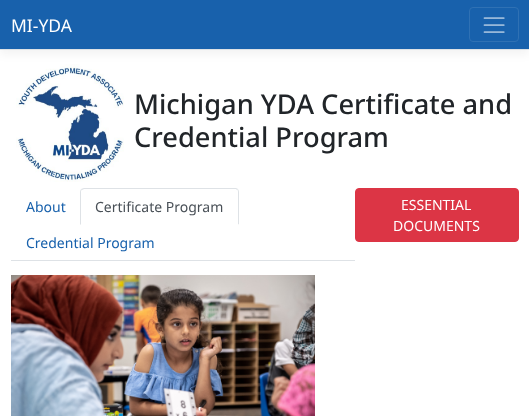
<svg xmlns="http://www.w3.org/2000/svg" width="529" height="416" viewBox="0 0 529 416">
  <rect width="100%" height="100%" fill="#fff"/>
  <image x="16" y="64" width="108" height="118" href="img/2.png"/>
  <path d="M0 4h529v50H0z" fill="#0000000d" filter="blur(5px)"/>
  <path d="M0 0h529v49H0z" fill="#1861ac"/>
  <path d="M0 49h529v1H0z" fill="#dee2e6"/>
  <rect x="469.5" y="7.5" width="49" height="34" rx="3.5" fill="none" stroke="#2f71b4"/>
  <image x="483" y="17" width="22" height="16" href="img/1.png"/>
  <path d="M11 260h344v1H11z" fill="#dee2e6"/>
  <path d="M84 188L81 189L82 190L84 189H236L237 190L238 189L236 188Z" fill="#dee2e6"/>
  <path d="M239 225V192C239 191 238.5 190 238 189L237.5 189.5C237.5 190 238 191 238 192V224Z" fill="#dee2e6"/>
  <path d="M239 225L238 224H81L80 225Z" fill="#fff"/>
  <path d="M80 225L81 224V192C81 191 81 190 82 190L81 189C80.5 190 80 191 80 192Z" fill="#dee2e6"/>
  <rect x="355.5" y="188.5" width="163" height="53" rx="3.5" fill="#dc3545" stroke="#dc3545"/>
  <image x="11" y="275" width="304" height="141" href="img/3.png"/>
  <text x="11" y="32" font-family="Noto Sans" font-size="17.5" fill="#fff">MI-YDA</text>
  <g font-family="Noto Sans" font-size="27.25" font-weight="500" fill="#212529">
    <text x="134" y="114">Michigan YDA Certificate and</text>
    <text x="134" y="147">Credential Program</text>
  </g>
  <text x="26" y="212" font-family="Noto Sans" font-size="14" fill="#1861ac">About</text>
  <text x="95" y="212" font-family="Noto Sans" font-size="14" fill="#495057">Certificate Program</text>
  <text x="26" y="248" font-family="Noto Sans" font-size="14" fill="#1861ac">Credential Program</text>
  <g font-family="Noto Sans" font-size="14" fill="#fff">
    <text x="401" y="210">ESSENTIAL</text>
    <text x="393" y="231">DOCUMENTS</text>
  </g>
</svg>
